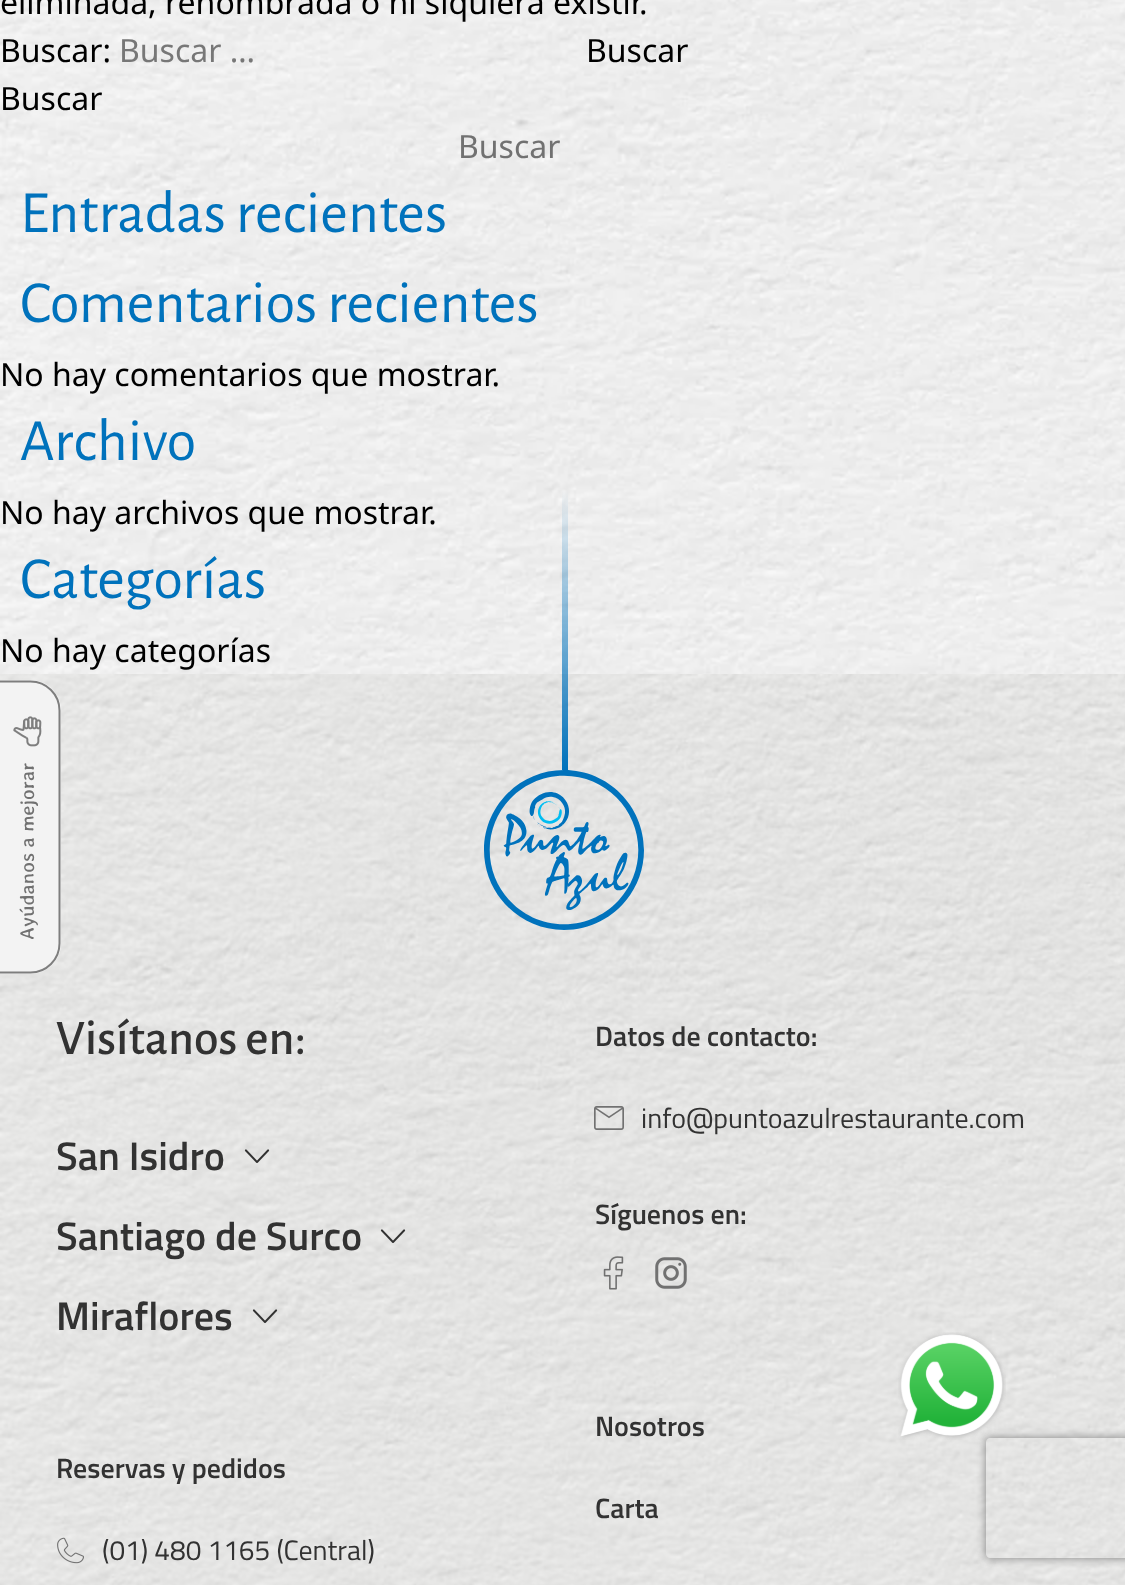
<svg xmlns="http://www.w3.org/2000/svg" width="1125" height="1585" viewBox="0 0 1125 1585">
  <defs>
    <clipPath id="clip1"><path d="M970 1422H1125V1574H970ZM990 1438H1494C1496 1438 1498 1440 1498 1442V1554C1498 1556 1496 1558 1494 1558H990C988 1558 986 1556 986 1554V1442C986 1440 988 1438 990 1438Z" clip-rule="evenodd"/></clipPath>
    <linearGradient id="g1" gradientUnits="userSpaceOnUse" x1="564" y1="490" x2="564" y2="770"><stop offset="0" stop-color="#fff"/><stop offset="0" stop-color="#fff" stop-opacity="0"/><stop offset="0" stop-color="#0072bc" stop-opacity="0"/><stop offset="1" stop-color="#0072bc"/></linearGradient>
  </defs>
  <rect width="100%" height="100%" fill="#f8f8f8"/>
  <image x="0" y="0" width="1125" height="674" href="img/1.png"/>
  <path d="M0 674h1125v911H0z" fill="#dededd"/>
  <image x="0" y="674" width="1125" height="911" href="img/4.png"/>
  <g clip-path="url(#clip1)">
    <rect x="986" y="1438" width="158" height="120" rx="4" fill="#808080" filter="blur(5px)"/>
  </g>
  <image x="898" y="1332" width="108" height="108" href="img/2.png"/>
  <path d="M-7 974V680H31C47 680 61 694 61 710V944C61 960 47 974 31 974Z" fill="#f3f3f3"/>
  <path d="M-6.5 972.5V681.5H30.5C46.5 681.5 59.5 694.5 59.5 710.5V943.5C59.5 959.5 46.5 972.5 30.5 972.5Z" fill="none" stroke="#7e7e7e" stroke-width="2"/>
  <image x="13" y="716" width="29" height="31" href="img/3.png"/>
  <path d="M562 490h6v280H562z" fill="url(#g1)"/>
  <image x="484" y="770" width="160" height="160" href="img/5.png"/>
  <image x="244" y="1149" width="26" height="14" href="img/6.png"/>
  <image x="380" y="1229" width="26" height="14" href="img/7.png"/>
  <image x="252" y="1309" width="26" height="14" href="img/8.png"/>
  <image x="57" y="1537" width="27" height="27" href="img/9.png"/>
  <image x="594" y="1106" width="30" height="24" href="img/10.png"/>
  <image x="603" y="1256" width="21" height="34" href="img/11.png"/>
  <image x="655" y="1257" width="32" height="32" href="img/12.png"/>
  <g font-family="Noto Sans" font-size="32" fill="#000">
    <text x="0" y="14">eliminada, renombrada o ni siquiera existir.</text>
    <text x="0" y="62">Buscar:</text>
  </g>
  <text x="119" y="62" font-family="Noto Sans" font-size="32" fill="#777">Buscar …</text>
  <g font-family="Noto Sans" font-size="32" fill="#000">
    <text x="586" y="62">Buscar</text>
    <text x="0" y="110">Buscar</text>
  </g>
  <text x="458" y="158" font-family="Noto Sans" font-size="32" fill="#717171">Buscar</text>
  <g font-family="Alegreya Sans" font-size="60" fill="#0072bc">
    <text x="20" y="232">Entradas recientes</text>
    <text x="20" y="322">Comentarios recientes</text>
  </g>
  <text x="0" y="386" font-family="Noto Sans" font-size="32" fill="#000">No hay comentarios que mostrar.</text>
  <text x="20" y="460" font-family="Alegreya Sans" font-size="60" fill="#0072bc">Archivo</text>
  <text x="0" y="524" font-family="Noto Sans" font-size="32" fill="#000">No hay archivos que mostrar.</text>
  <text x="20" y="598" font-family="Alegreya Sans" font-size="60" fill="#0072bc">Categorías</text>
  <text x="0" y="662" font-family="Noto Sans" font-size="32" fill="#000">No hay categorías</text>
  <text x="34" y="940" transform="rotate(-90 34 940)" font-family="Averia Libre" font-size="20" fill="#717171">Ayúdanos a mejorar</text>
  <text x="56" y="1054" font-family="Alegreya Sans" font-size="50" font-weight="500" fill="#323232">Visítanos en:</text>
  <g font-family="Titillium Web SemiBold" font-size="40" font-weight="600" fill="#323232">
    <text x="56" y="1170">San Isidro</text>
    <text x="56" y="1250">Santiago de Surco</text>
    <text x="56" y="1330">Miraflores</text>
  </g>
  <text x="56" y="1478" font-family="Titillium Web SemiBold" font-size="28" font-weight="600" fill="#323232">Reservas y pedidos</text>
  <text x="102" y="1560" font-family="Titillium Web" font-size="28" fill="#323232">(01) 480 1165 (Central)</text>
  <text x="595" y="1046" font-family="Titillium Web SemiBold" font-size="28" font-weight="600" fill="#323232">Datos de contacto:</text>
  <text x="641" y="1128" font-family="Titillium Web" font-size="28" fill="#323232">info@puntoazulrestaurante.com</text>
  <g font-family="Titillium Web SemiBold" font-size="28" font-weight="600" fill="#323232">
    <text x="595" y="1224">Síguenos en:</text>
    <text x="595" y="1436">Nosotros</text>
    <text x="595" y="1518">Carta</text>
  </g>
</svg>
